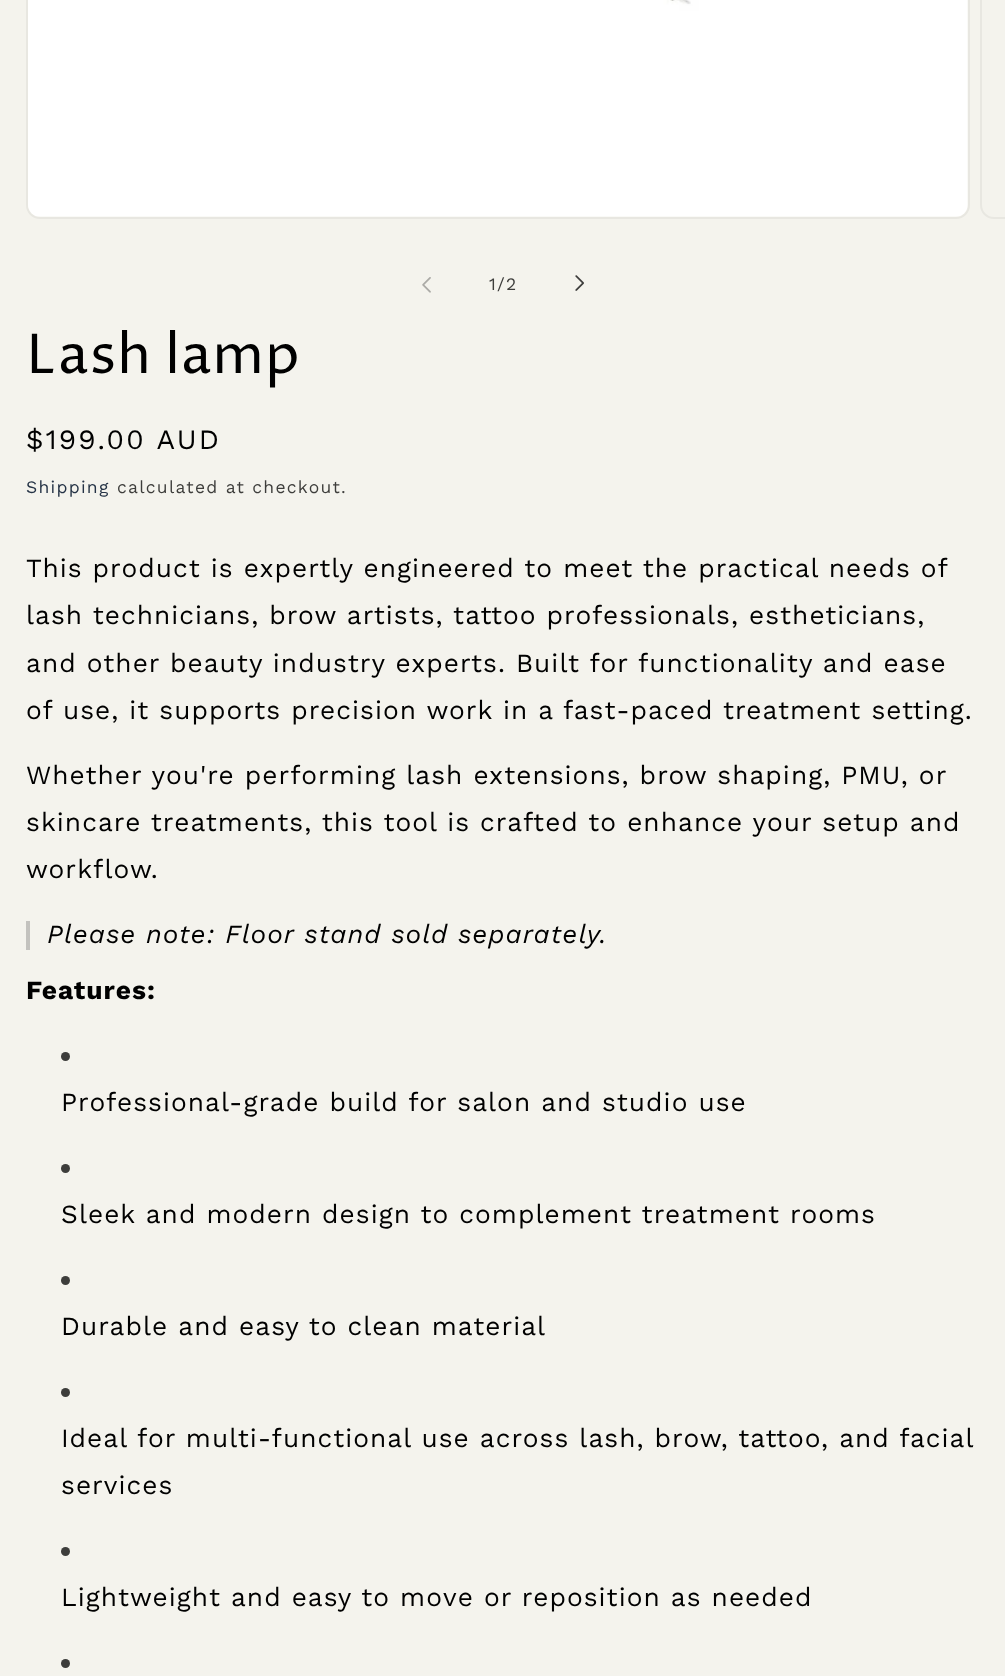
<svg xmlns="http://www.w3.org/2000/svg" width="1005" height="1676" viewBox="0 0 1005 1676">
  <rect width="100%" height="100%" fill="#f4f3ed"/>
  <rect x="27" y="-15" width="942" height="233" rx="13" fill="none" stroke="#e8e7e1" stroke-width="2"/>
  <image x="28" y="0" width="940" height="217" href="img/1.png"/>
  <rect x="981" y="-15" width="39" height="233" rx="13" fill="none" stroke="#e8e7e1" stroke-width="2"/>
  <image x="422" y="277" width="9" height="16" href="img/2.png"/>
  <image x="575" y="275" width="9" height="16" href="img/3.png"/>
  <path d="M26 921h4v29H26z" fill="#c3c2be"/>
  <circle cx="65.5" cy="1056.5" r="4.5" fill="#3d3d3b"/>
  <circle cx="65.5" cy="1168.5" r="4.5" fill="#3d3d3b"/>
  <circle cx="65.5" cy="1280.5" r="4.5" fill="#3d3d3b"/>
  <circle cx="65.5" cy="1392.5" r="4.5" fill="#3d3d3b"/>
  <circle cx="65.5" cy="1551.5" r="4.5" fill="#3d3d3b"/>
  <circle cx="65.5" cy="1663.5" r="4.5" fill="#3d3d3b"/>
  <text x="489" y="290" font-family="Work Sans" font-size="17.5" letter-spacing="1.25" fill="#3d3d3b">1/2</text>
  <text x="26" y="373" font-family="Proza Libre" font-size="55" letter-spacing="1" fill="#000">Lash lamp</text>
  <text x="26" y="449" font-family="Work Sans" font-size="28" letter-spacing="2.25" fill="#000">$199.00 AUD</text>
  <text x="26" y="493" font-family="Work Sans" font-size="17.5" letter-spacing="1.25" fill="#253346">Shipping</text>
  <text x="117" y="493" font-family="Work Sans" font-size="17.5" letter-spacing="1.25" fill="#3d3d3b">calculated at checkout.</text>
  <g font-family="Work Sans" font-size="26.25" letter-spacing="1.05" fill="#000">
    <text x="26" y="577">This product is expertly engineered to meet the practical needs of</text>
    <text x="26" y="624">lash technicians, brow artists, tattoo professionals, estheticians,</text>
    <text x="26" y="672">and other beauty industry experts. Built for functionality and ease</text>
    <text x="26" y="719">of use, it supports precision work in a fast-paced treatment setting.</text>
    <text x="26" y="784">Whether you're performing lash extensions, brow shaping, PMU, or</text>
    <text x="26" y="831">skincare treatments, this tool is crafted to enhance your setup and</text>
    <text x="26" y="878">workflow.</text>
  </g>
  <text x="47" y="943" font-family="Work Sans" font-size="26.25" font-style="italic" letter-spacing="1.05" fill="#000">Please note: Floor stand sold separately.</text>
  <text x="26" y="999" font-family="Work Sans" font-size="26.25" font-weight="bold" letter-spacing="1.05" fill="#000">Features:</text>
  <g font-family="Work Sans" font-size="26.25" letter-spacing="1.05" fill="#000">
    <text x="61" y="1111">Professional-grade build for salon and studio use</text>
    <text x="61" y="1223">Sleek and modern design to complement treatment rooms</text>
    <text x="61" y="1335">Durable and easy to clean material</text>
    <text x="61" y="1447">Ideal for multi-functional use across lash, brow, tattoo, and facial</text>
    <text x="61" y="1494">services</text>
    <text x="61" y="1606">Lightweight and easy to move or reposition as needed</text>
  </g>
</svg>
